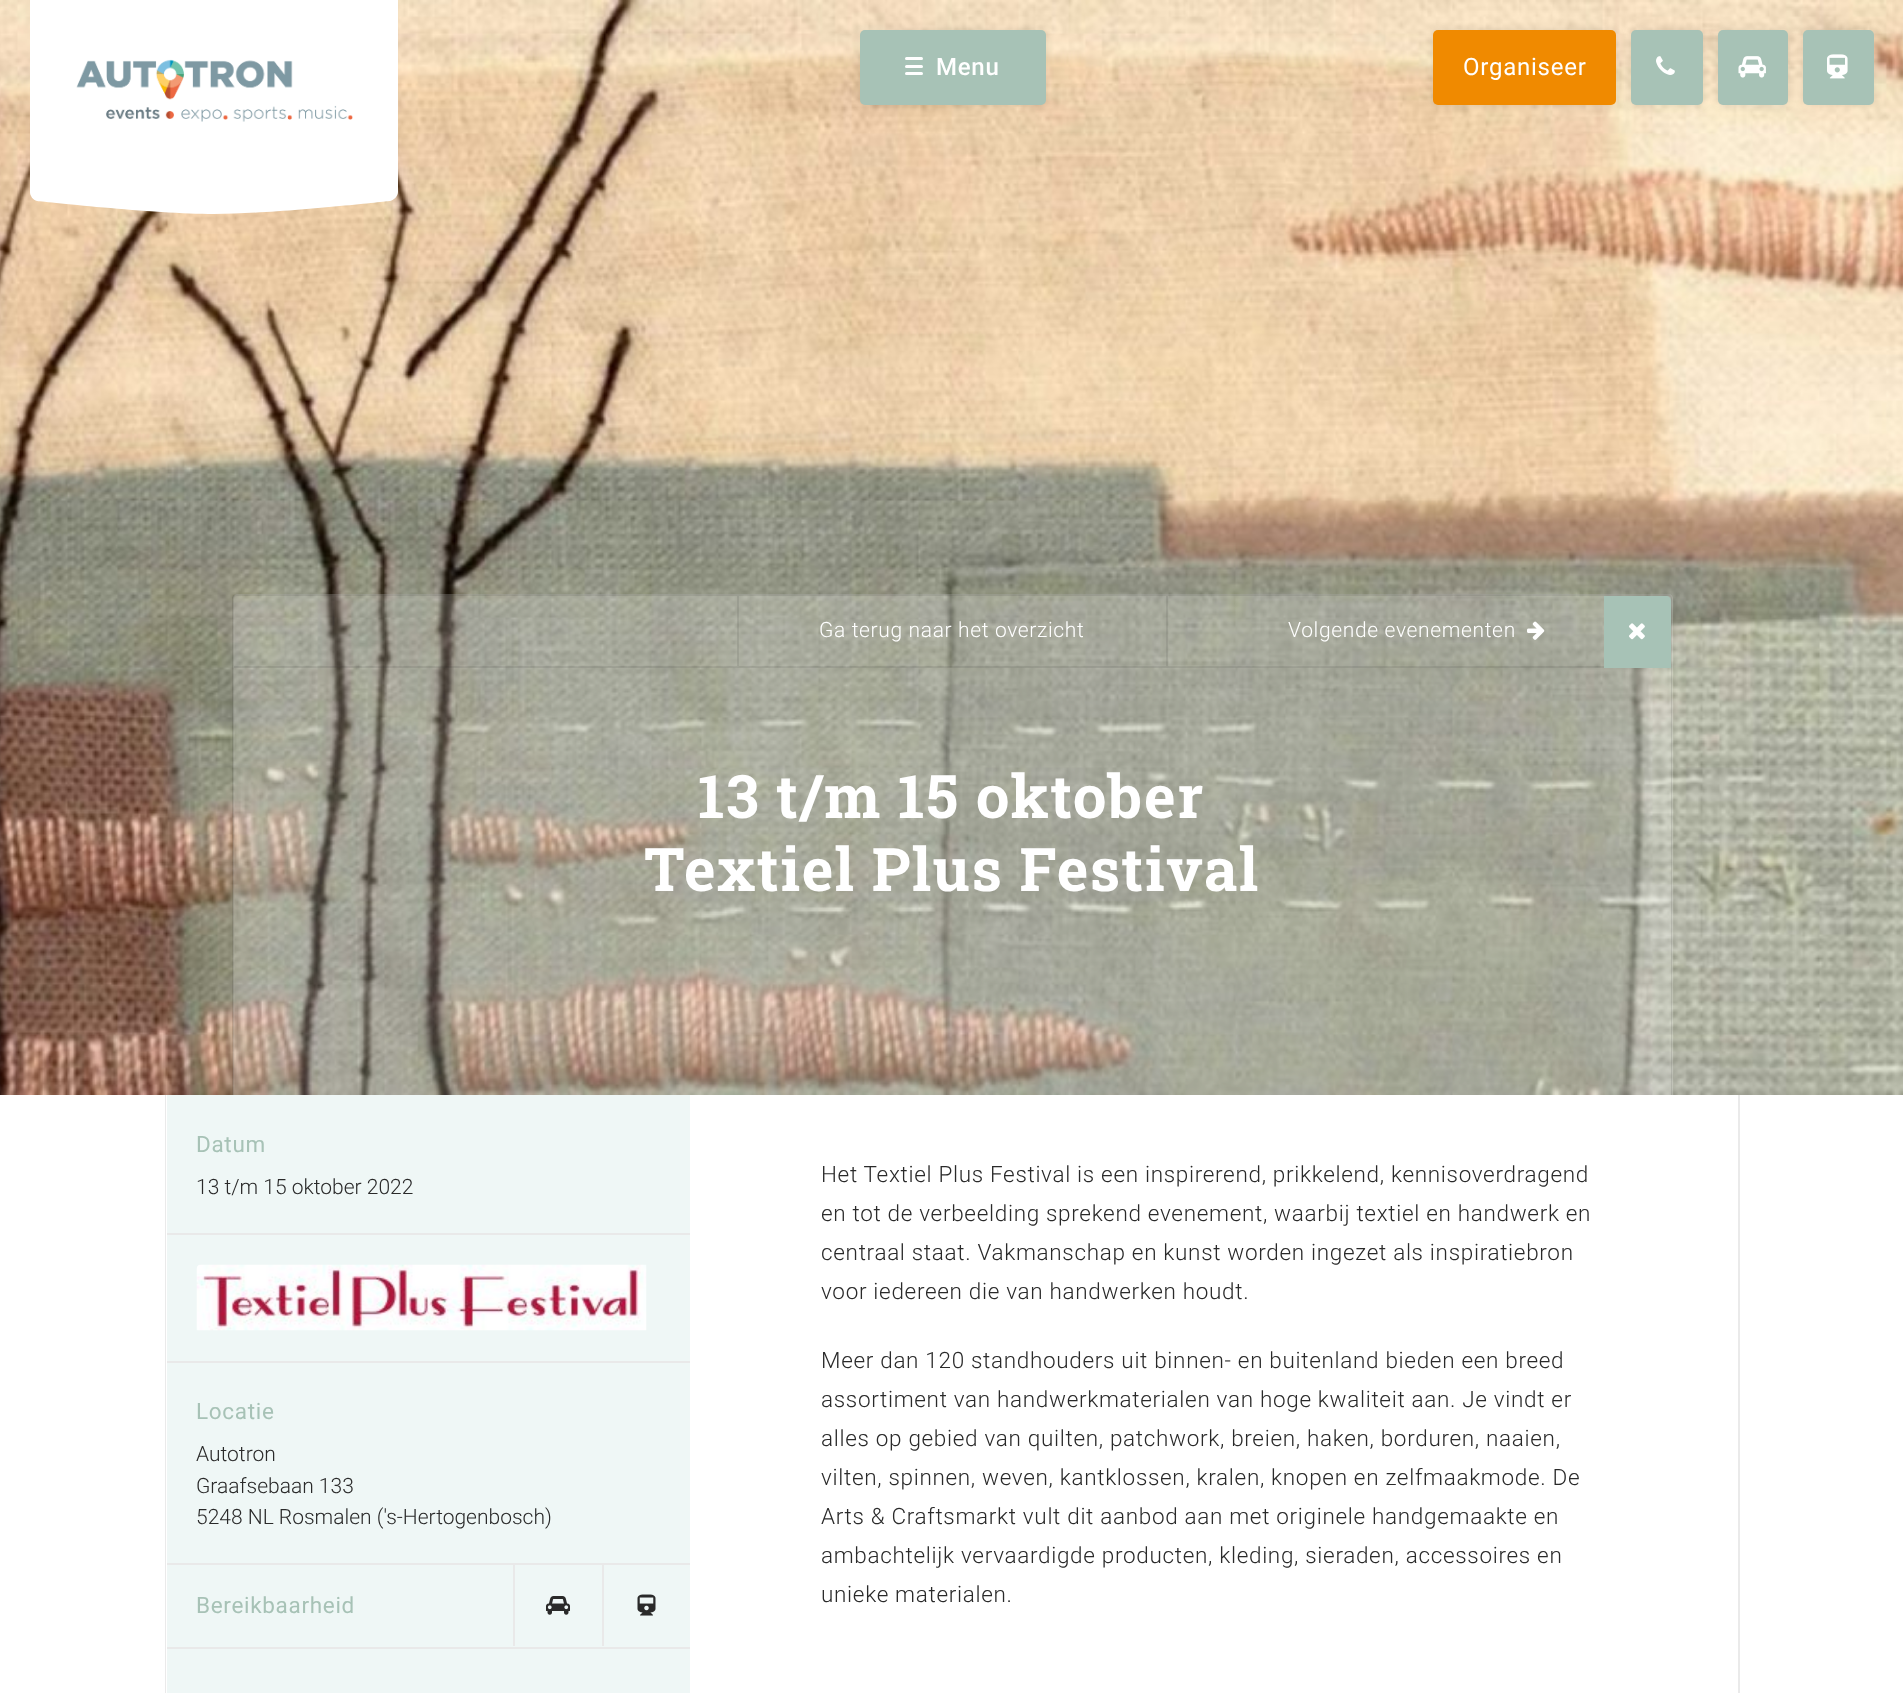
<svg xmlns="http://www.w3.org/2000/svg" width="1903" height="1693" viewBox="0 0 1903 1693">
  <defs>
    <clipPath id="clip1"><path d="M30 53h368v162H30z"/></clipPath>
  </defs>
  <rect width="100%" height="100%" fill="#fff"/>
  <image x="0" y="0" width="1903" height="1095" href="img/1.png"/>
  <path d="M30 0h368v53H30z" fill="#fff"/>
  <g clip-path="url(#clip1)">
    <path d="M30 21H398V192C398 196 394 200 390 201C390 201 273 214 214 214C155 214 37 201 37 201C33 200 30 196 30 192Z" fill="#fff" fill-rule="evenodd"/>
  </g>
  <image x="76" y="59" width="277" height="63" href="img/2.png"/>
  <rect x="1433" y="30" width="183" height="75" rx="5" fill="#0000001a" filter="blur(4px)"/>
  <rect x="1433" y="30" width="183" height="75" rx="5" fill="#f08a00"/>
  <rect x="1631" y="30" width="72" height="75" rx="5" fill="#0000001a" filter="blur(4px)"/>
  <rect x="1631" y="30" width="72" height="75" rx="5" fill="#a7c2b6"/>
  <image x="1656" y="56" width="19" height="19" href="img/3.png"/>
  <rect x="1718" y="30" width="70" height="75" rx="5" fill="#0000001a" filter="blur(4px)"/>
  <rect x="1718" y="30" width="70" height="75" rx="5" fill="#a7c2b6"/>
  <image x="1738" y="56" width="28" height="22" href="img/4.png"/>
  <rect x="1803" y="30" width="71" height="75" rx="5" fill="#0000001a" filter="blur(4px)"/>
  <rect x="1803" y="30" width="71" height="75" rx="5" fill="#a7c2b6"/>
  <image x="1827" y="54" width="21" height="25" href="img/5.png"/>
  <path d="M238 594H1668C1671 594 1673 596 1673 599V1095H233V599C233 596 235 594 238 594Z" fill="#ffffff33"/>
  <path d="M237 594H1668C1670 594 1672 596 1672 598V1095H232V598C232 596 235 594 237 594ZM237 596H1668C1670 596 1671 597 1671 598V1095H234V598C234 597 235 596 237 596Z" fill="#2a2a2a1a" fill-rule="evenodd"/>
  <path d="M234 666h1370v2H234z" fill="#2a2a2a1a"/>
  <path d="M1166 596h2v70H1166z" fill="#2a2a2a1a"/>
  <path d="M737 596h2v70H737z" fill="#2a2a2a1a"/>
  <image x="1527" y="621" width="18" height="19" href="img/6.png"/>
  <path d="M1604 596H1666C1669 596 1671 598 1671 601V668H1604Z" fill="#a7c2b6"/>
  <image x="1629" y="623" width="16" height="17" href="img/7.png"/>
  <rect x="860" y="30" width="186" height="75" rx="5" fill="#0000001a" filter="blur(4px)"/>
  <rect x="860" y="30" width="186" height="75" rx="5" fill="#a7c2b6"/>
  <rect x="905" y="65" width="18" height="3" rx="1.5" fill="#fff"/>
  <rect x="905" y="57" width="18" height="3" rx="1.5" fill="#fff"/>
  <rect x="905" y="72" width="18" height="3" rx="1.5" fill="#fff"/>
  <path d="M165 1095H1740V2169C1740 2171 1738 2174 1736 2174H170C167 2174 165 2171 165 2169ZM166 1095H1738V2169C1738 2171 1737 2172 1736 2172H170C168 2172 166 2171 166 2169Z" fill="#eaeaea" fill-rule="evenodd"/>
  <path d="M167 1095h523v598H167z" fill="#eff7f6"/>
  <path d="M167 1233h523v2H167z" fill="#e9e9e9"/>
  <path d="M167 1361h523v2H167z" fill="#e9e9e9"/>
  <image x="196" y="1264" width="451" height="67" href="img/8.png"/>
  <path d="M167 1563h523v2H167z" fill="#e9e9e9"/>
  <path d="M167 1647h523v2H167z" fill="#e9e9e9"/>
  <path d="M513 1565h2v81H513z" fill="#e9e9e9"/>
  <image x="546" y="1596" width="24" height="19" href="img/9.png"/>
  <path d="M602 1565h2v81H602z" fill="#e9e9e9"/>
  <image x="637" y="1594" width="19" height="22" href="img/10.png"/>
  <text x="1463" y="75" font-family="Roboto" font-size="24" letter-spacing="0.75" fill="#fff">Organiseer</text>
  <g font-family="Roboto" font-size="21" font-weight="300" letter-spacing="0.65" fill="#fff">
    <text x="819" y="637">Ga terug naar het overzicht</text>
    <text x="1288" y="637">Volgende evenementen</text>
  </g>
  <g font-family="Roboto Slab" font-size="60" font-weight="bold" letter-spacing="1.5" fill="#fff">
    <text x="698" y="818">13 t/m 15 oktober</text>
    <text x="644" y="891">Textiel Plus Festival</text>
  </g>
  <text x="936" y="75" font-family="Roboto" font-size="24" font-weight="500" letter-spacing="0.75" fill="#fff">Menu</text>
  <text x="196" y="1152" font-family="Roboto" font-size="22.5" letter-spacing="0.68" fill="#a7c2b6">Datum</text>
  <text x="196" y="1194" font-family="Roboto" font-size="21" font-weight="300" fill="#2a2a2a">13 t/m 15 oktober 2022</text>
  <text x="196" y="1419" font-family="Roboto" font-size="22.5" letter-spacing="0.68" fill="#a7c2b6">Locatie</text>
  <g font-family="Roboto" font-size="21" font-weight="300" fill="#2a2a2a">
    <text x="196" y="1461">Autotron</text>
    <text x="196" y="1493">Graafsebaan 133</text>
    <text x="196" y="1524">5248 NL Rosmalen ('s-Hertogenbosch)</text>
  </g>
  <text x="196" y="1613" font-family="Roboto" font-size="22.5" letter-spacing="0.68" fill="#a7c2b6">Bereikbaarheid</text>
  <g font-family="Roboto" font-size="22.5" font-weight="300" letter-spacing="0.68" fill="#2a2a2a">
    <text x="821" y="1182">Het Textiel Plus Festival is een inspirerend, prikkelend, kennisoverdragend</text>
    <text x="821" y="1221">en tot de verbeelding sprekend evenement, waarbij textiel en handwerk en</text>
    <text x="821" y="1260">centraal staat. Vakmanschap en kunst worden ingezet als inspiratiebron</text>
    <text x="821" y="1299">voor iedereen die van handwerken houdt.</text>
    <text x="821" y="1368">Meer dan 120 standhouders uit binnen- en buitenland bieden een breed</text>
    <text x="821" y="1407">assortiment van handwerkmaterialen van hoge kwaliteit aan. Je vindt er</text>
    <text x="821" y="1446">alles op gebied van quilten, patchwork, breien, haken, borduren, naaien,</text>
    <text x="821" y="1485">vilten, spinnen, weven, kantklossen, kralen, knopen en zelfmaakmode. De</text>
    <text x="821" y="1524">Arts &amp; Craftsmarkt vult dit aanbod aan met originele handgemaakte en</text>
    <text x="821" y="1563">ambachtelijk vervaardigde producten, kleding, sieraden, accessoires en</text>
    <text x="821" y="1602">unieke materialen.</text>
  </g>
</svg>
